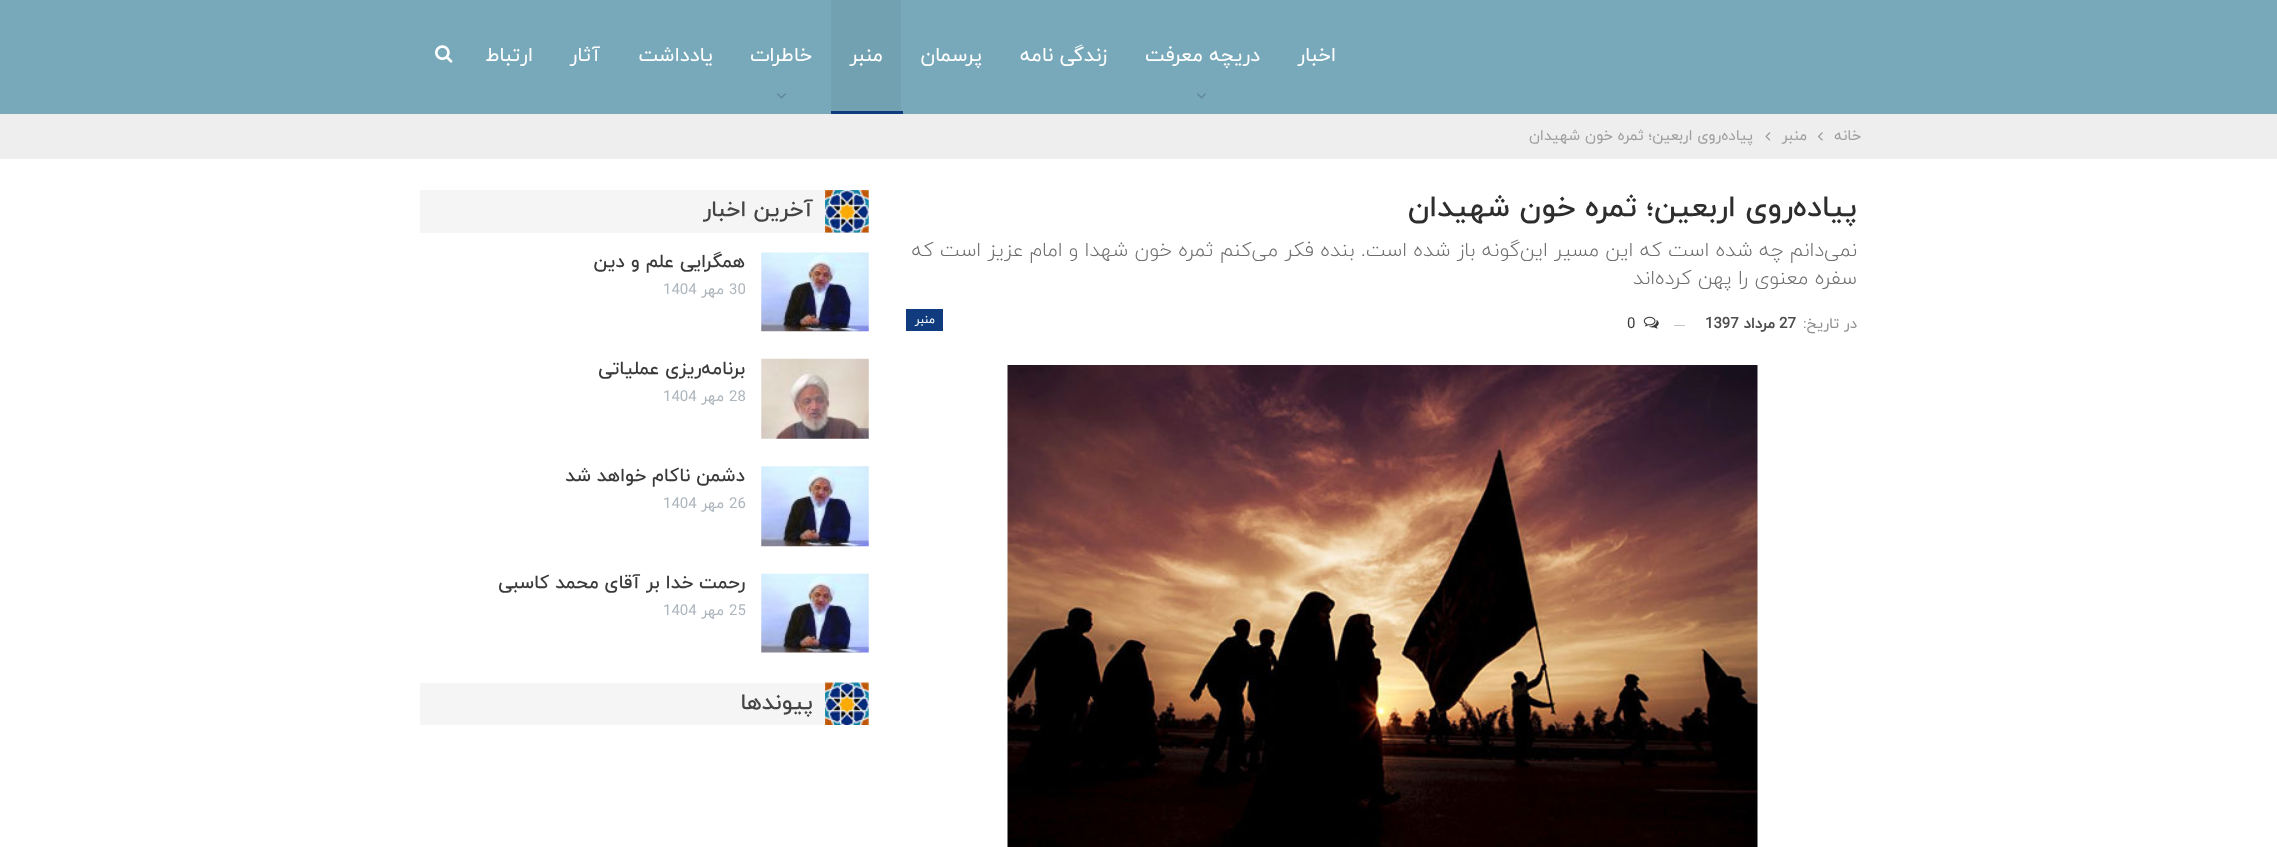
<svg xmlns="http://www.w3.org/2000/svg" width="2277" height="847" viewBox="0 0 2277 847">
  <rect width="100%" height="100%" fill="#fff"/>
  <path d="M0 0h2277v114H0z" fill="#78a9ba"/>
  <image x="1197" y="93" width="9" height="6" href="img/1.png"/>
  <path d="M831 0h70v111H831z" fill="#72a1b1"/>
  <path d="M831 111h72v3H831z" fill="#103b7f"/>
  <image x="777" y="93" width="9" height="6" href="img/1.png"/>
  <image x="435" y="45" width="18" height="18" href="img/2.png"/>
  <path d="M0 114h2277v45H0z" fill="#eee"/>
  <image x="1818" y="132" width="5" height="9" href="img/3.png"/>
  <image x="1765" y="132" width="6" height="9" href="img/4.png"/>
  <path d="M1674 325h11v1H1674z" fill="#c4c4c4"/>
  <image x="1643" y="316" width="16" height="13" href="img/5.png"/>
  <path d="M906 309h37v22H906z" fill="#103b7f"/>
  <image x="1007" y="365" width="751" height="482" href="img/6.png"/>
  <path d="M420 190h405v43H420z" fill="#f5f5f5"/>
  <path d="M825 190h44v43H825z" fill="#e1e1e1"/>
  <image x="825" y="190" width="44" height="43" href="img/7.png"/>
  <image x="761" y="252" width="108" height="80" href="img/8.png"/>
  <image x="761" y="358" width="108" height="81" href="img/9.png"/>
  <image x="761" y="466" width="108" height="81" href="img/10.png"/>
  <image x="761" y="573" width="108" height="80" href="img/11.png"/>
  <path d="M420 683h449v42H420z" fill="#f5f5f5"/>
  <image x="825" y="682" width="44" height="43" href="img/12.png"/>
  <g font-family="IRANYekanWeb" font-size="20" direction="rtl" fill="#fff">
    <text x="1336" y="61">اخبار</text>
    <text x="1260" y="61">دریچه معرفت</text>
    <text x="1107" y="61">زندگی نامه</text>
    <text x="982" y="61">پرسمان</text>
    <text x="883" y="61">منبر</text>
    <text x="812" y="61">خاطرات</text>
    <text x="713" y="61">یادداشت</text>
    <text x="600" y="61">آثار</text>
    <text x="533" y="61">ارتباط</text>
  </g>
  <g font-family="IRANYekanWeb" font-size="15" direction="rtl" fill="#9e9e9e">
    <text x="1861" y="140">خانه</text>
    <text x="1807" y="140">منبر</text>
    <text x="1753" y="140">پیاده‌روی اربعین؛ ثمره خون شهیدان</text>
  </g>
  <text x="1857" y="216" font-family="IRANYekanWeb" font-size="30" font-weight="500" direction="rtl" fill="#2d2d2d">پیاده‌روی اربعین؛ ثمره خون شهیدان</text>
  <g font-family="IRANYekanWeb" font-size="20" font-weight="300" direction="rtl" fill="#6d6d6d">
    <text x="1857" y="256">نمی‌دانم چه شده است که این مسیر این‌گونه باز شده است. بنده فکر می‌کنم ثمره خون شهدا و امام عزیز است که</text>
    <text x="1857" y="284">سفره‌ معنوی را پهن کرده‌اند</text>
  </g>
  <text x="1857" y="328" font-family="IRANYekanWeb" font-size="15" direction="rtl" fill="#8f8f8f">در تاریخ:</text>
  <text x="1779" y="328" font-family="IRANYekanWeb" font-size="15" font-weight="bold" fill="#4d4d4d">27</text>
  <text x="1775" y="328" font-family="IRANYekanWeb" font-size="15" font-weight="bold" direction="rtl" fill="#4d4d4d">مرداد</text>
  <text x="1705" y="328" font-family="IRANYekanWeb" font-size="15" font-weight="bold" fill="#4d4d4d">1397</text>
  <text x="1627" y="328" font-family="IRANYekanWeb" font-size="15" fill="#3a3a3a">0</text>
  <text x="935" y="323" font-family="IRANYekanWeb" font-size="12" direction="rtl" fill="#fff">منبر</text>
  <text x="813" y="216" font-family="IRANYekanWeb" font-size="22.5" font-weight="500" direction="rtl" fill="#444">آخرین اخبار</text>
  <text x="745" y="267" font-family="IRANYekanWeb" font-size="18.75" font-weight="500" direction="rtl" fill="#3a3a3a">همگرایی علم و دین</text>
  <text x="729" y="294" font-family="IRANYekanWeb" font-size="15" fill="#adb5bd">30</text>
  <text x="724" y="294" font-family="IRANYekanWeb" font-size="15" direction="rtl" fill="#adb5bd">مهر</text>
  <text x="663" y="294" font-family="IRANYekanWeb" font-size="15" fill="#adb5bd">1404</text>
  <text x="745" y="374" font-family="IRANYekanWeb" font-size="18.75" font-weight="500" direction="rtl" fill="#3a3a3a">برنامه‌ریزی عملیاتی</text>
  <text x="729" y="401" font-family="IRANYekanWeb" font-size="15" fill="#adb5bd">28</text>
  <text x="724" y="401" font-family="IRANYekanWeb" font-size="15" direction="rtl" fill="#adb5bd">مهر</text>
  <text x="663" y="401" font-family="IRANYekanWeb" font-size="15" fill="#adb5bd">1404</text>
  <text x="745" y="481" font-family="IRANYekanWeb" font-size="18.75" font-weight="500" direction="rtl" fill="#3a3a3a">دشمن ناکام خواهد شد</text>
  <text x="729" y="508" font-family="IRANYekanWeb" font-size="15" fill="#adb5bd">26</text>
  <text x="724" y="508" font-family="IRANYekanWeb" font-size="15" direction="rtl" fill="#adb5bd">مهر</text>
  <text x="663" y="508" font-family="IRANYekanWeb" font-size="15" fill="#adb5bd">1404</text>
  <text x="745" y="588" font-family="IRANYekanWeb" font-size="18.75" font-weight="500" direction="rtl" fill="#3a3a3a">رحمت خدا بر آقای محمد کاسبی</text>
  <text x="729" y="615" font-family="IRANYekanWeb" font-size="15" fill="#adb5bd">25</text>
  <text x="724" y="615" font-family="IRANYekanWeb" font-size="15" direction="rtl" fill="#adb5bd">مهر</text>
  <text x="663" y="615" font-family="IRANYekanWeb" font-size="15" fill="#adb5bd">1404</text>
  <text x="813" y="709" font-family="IRANYekanWeb" font-size="22.5" font-weight="500" direction="rtl" fill="#444">پیوندها</text>
</svg>
